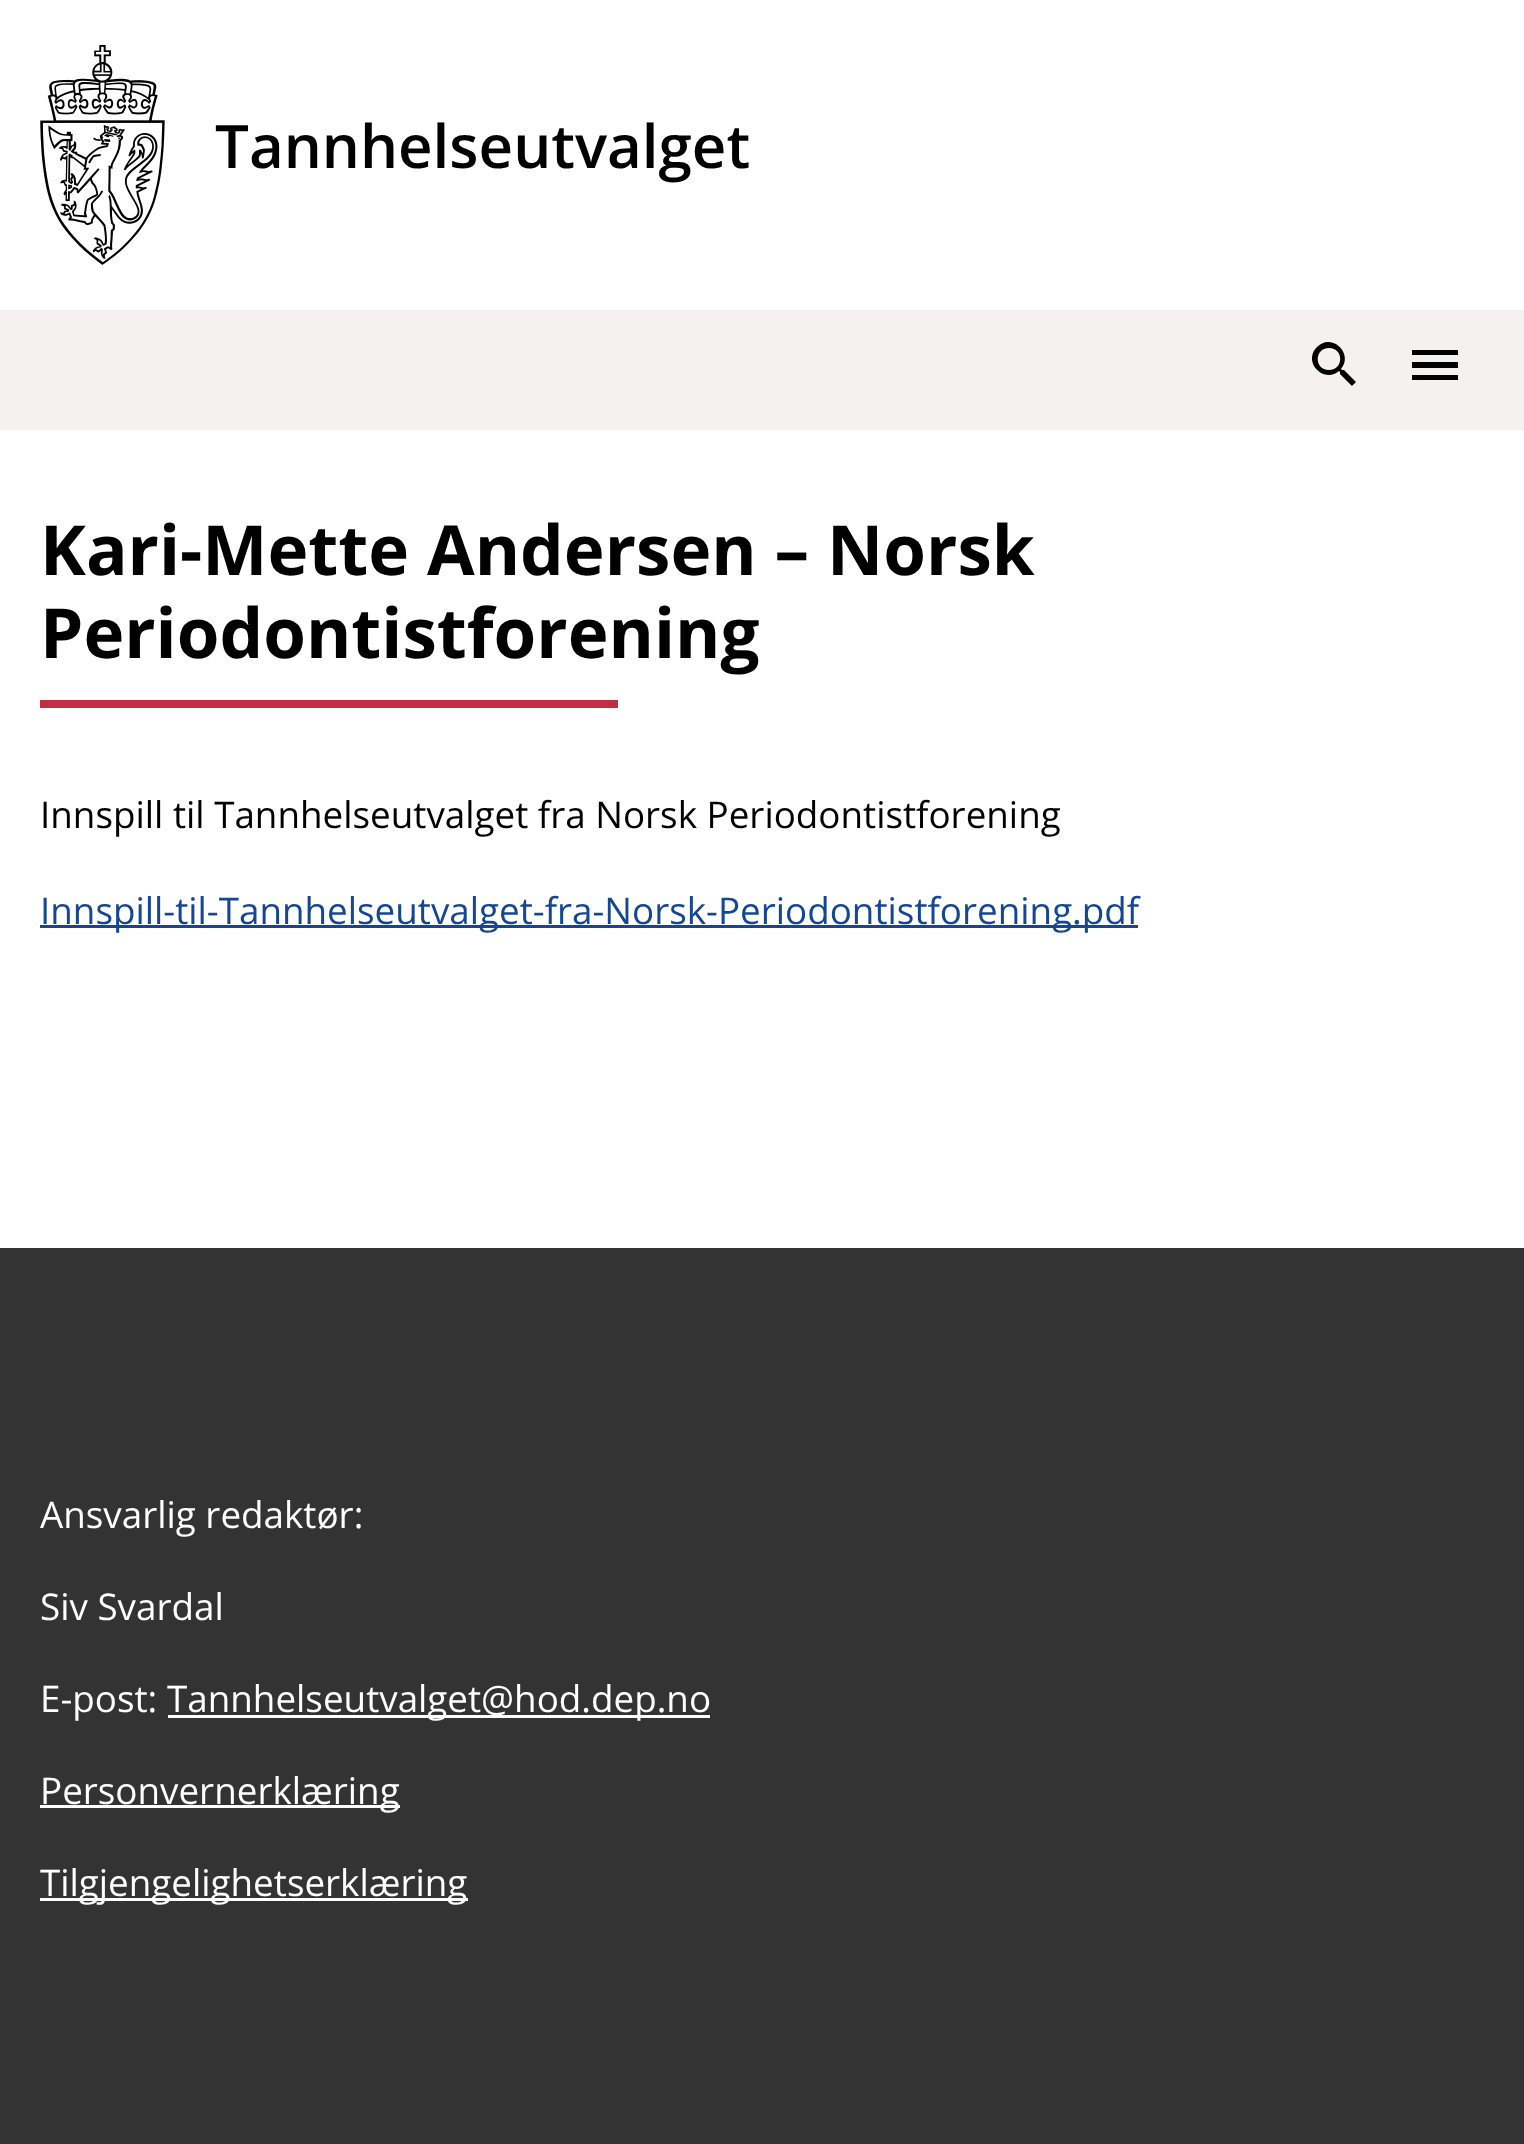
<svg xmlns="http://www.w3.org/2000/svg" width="1524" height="2144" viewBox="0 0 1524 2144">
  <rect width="100%" height="100%" fill="#fff"/>
  <image x="40" y="45" width="125" height="220" href="img/1.png"/>
  <path d="M0 310h1524v120H0z" fill="#f4f1f0"/>
  <path d="M1344 370H1342L1341 369C1354 354 1332 332 1317 347C1302 362 1324 384 1339 371L1340 372V374L1352 386L1356 382ZM1329 370C1314 370 1314 348 1329 348C1344 348 1344 370 1329 370Z" fill="#000"/>
  <path d="M1412 380H1458V375H1412ZM1412 368H1458V362H1412ZM1412 350V355H1458V350Z" fill="#000"/>
  <path d="M40 700h578v8H40z" fill="#c32d41"/>
  <path d="M40 925h1098v3H40z" fill="#144696"/>
  <path d="M0 1248h1524v896H0z" fill="#333"/>
  <path d="M168 1715h542v3H168z" fill="#fff"/>
  <path d="M40 1805h360v3H40z" fill="#fff"/>
  <path d="M40 1898h428v3H40z" fill="#fff"/>
  <text x="215" y="168" font-family="Open Sans" font-size="60" font-weight="600" fill="#000">Tannhelseutvalget</text>
  <g font-family="Open Sans" font-size="69.1" font-weight="bold" fill="#000">
    <text x="40" y="575">Kari-Mette Andersen – Norsk</text>
    <text x="40" y="658">Periodontistforening</text>
  </g>
  <text x="40" y="828" font-family="Open Sans" font-size="36.8" fill="#000">Innspill til Tannhelseutvalget fra Norsk Periodontistforening</text>
  <text x="40" y="924" font-family="Open Sans" font-size="36.8" fill="#144696">Innspill-til-Tannhelseutvalget-fra-Norsk-Periodontistforening.pdf</text>
  <g font-family="Open Sans" font-size="36.8" fill="#fff">
    <text x="40" y="1528">Ansvarlig redaktør:</text>
    <text x="40" y="1620">Siv Svardal</text>
    <text x="40" y="1712">E-post:</text>
    <text x="167" y="1712">Tannhelseutvalget@hod.dep.no</text>
    <text x="40" y="1804">Personvernerklæring</text>
    <text x="40" y="1896">Tilgjengelighetserklæring</text>
  </g>
</svg>
